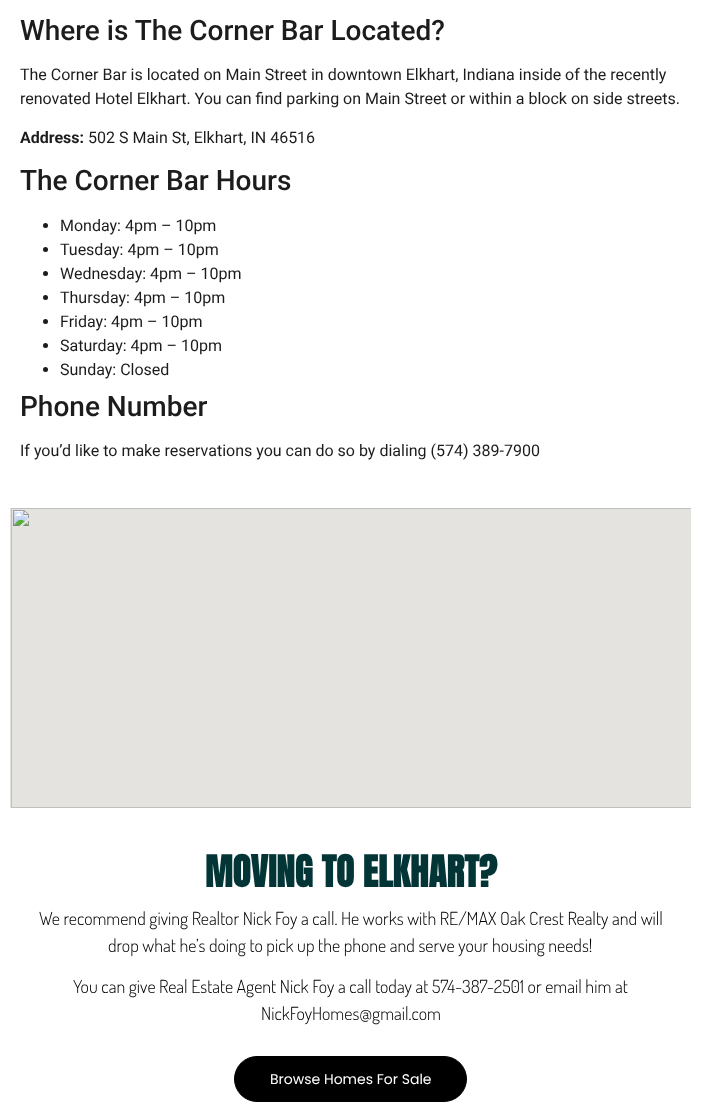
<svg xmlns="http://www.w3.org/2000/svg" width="701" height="1106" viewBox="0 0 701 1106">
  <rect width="100%" height="100%" fill="#fff"/>
  <circle cx="45.5" cy="225.5" r="2.5" fill="#1c1c1c"/>
  <circle cx="45.5" cy="249.5" r="2.5" fill="#1c1c1c"/>
  <circle cx="45.5" cy="273.5" r="2.5" fill="#1c1c1c"/>
  <circle cx="45.5" cy="297.5" r="2.5" fill="#1c1c1c"/>
  <circle cx="45.5" cy="321.5" r="2.5" fill="#1c1c1c"/>
  <circle cx="45.5" cy="345.5" r="2.5" fill="#1c1c1c"/>
  <circle cx="45.5" cy="369.5" r="2.5" fill="#1c1c1c"/>
  <image x="10" y="508" width="681" height="300" href="img/1.png"/>
  <rect x="234.5" y="1056.5" width="232" height="45" rx="22.5" fill="#000" stroke="#000"/>
  <text x="20" y="40" font-family="Roboto" font-size="28" font-weight="500" fill="#1c1c1c">Where is The Corner Bar Located?</text>
  <g font-family="Roboto" font-size="16" fill="#1c1c1c">
    <text x="20" y="80">The Corner Bar is located on Main Street in downtown Elkhart, Indiana inside of the recently</text>
    <text x="20" y="104">renovated Hotel Elkhart. You can find parking on Main Street or within a block on side streets.</text>
  </g>
  <text x="20" y="143" font-family="Roboto" font-size="16" font-weight="bold" fill="#1c1c1c">Address:</text>
  <text x="88" y="143" font-family="Roboto" font-size="16" fill="#1c1c1c">502 S Main St, Elkhart, IN 46516</text>
  <text x="20" y="190" font-family="Roboto" font-size="28" font-weight="500" fill="#1c1c1c">The Corner Bar Hours</text>
  <g font-family="Roboto" font-size="16" fill="#1c1c1c">
    <text x="60" y="231">Monday: 4pm – 10pm</text>
    <text x="60" y="255">Tuesday: 4pm – 10pm</text>
    <text x="60" y="279">Wednesday: 4pm – 10pm</text>
    <text x="60" y="303">Thursday: 4pm – 10pm</text>
    <text x="60" y="327">Friday: 4pm – 10pm</text>
    <text x="60" y="351">Saturday: 4pm – 10pm</text>
    <text x="60" y="375">Sunday: Closed</text>
  </g>
  <text x="20" y="416" font-family="Roboto" font-size="28" font-weight="500" fill="#1c1c1c">Phone Number</text>
  <text x="20" y="456" font-family="Roboto" font-size="16" fill="#1c1c1c">If you’d like to make reservations you can do so by dialing (574) 389-7900</text>
  <text x="205" y="887" font-family="Anton" font-size="37" font-weight="bold" fill="#033537">MOVING TO ELKHART?</text>
  <g font-family="Dosis" font-size="18" font-weight="300" fill="#000">
    <text x="39" y="925">We recommend giving Realtor Nick Foy a call. He works with RE/MAX Oak Crest Realty and will</text>
    <text x="108" y="952">drop what he’s doing to pick up the phone and serve your housing needs!</text>
    <text x="73" y="993">You can give Real Estate Agent Nick Foy a call today at 574-387-2501 or email him at</text>
    <text x="261" y="1020">NickFoyHomes@gmail.com</text>
  </g>
  <text x="270" y="1084" font-family="Poppins" font-size="14" fill="#fff">Browse Homes For Sale</text>
</svg>
